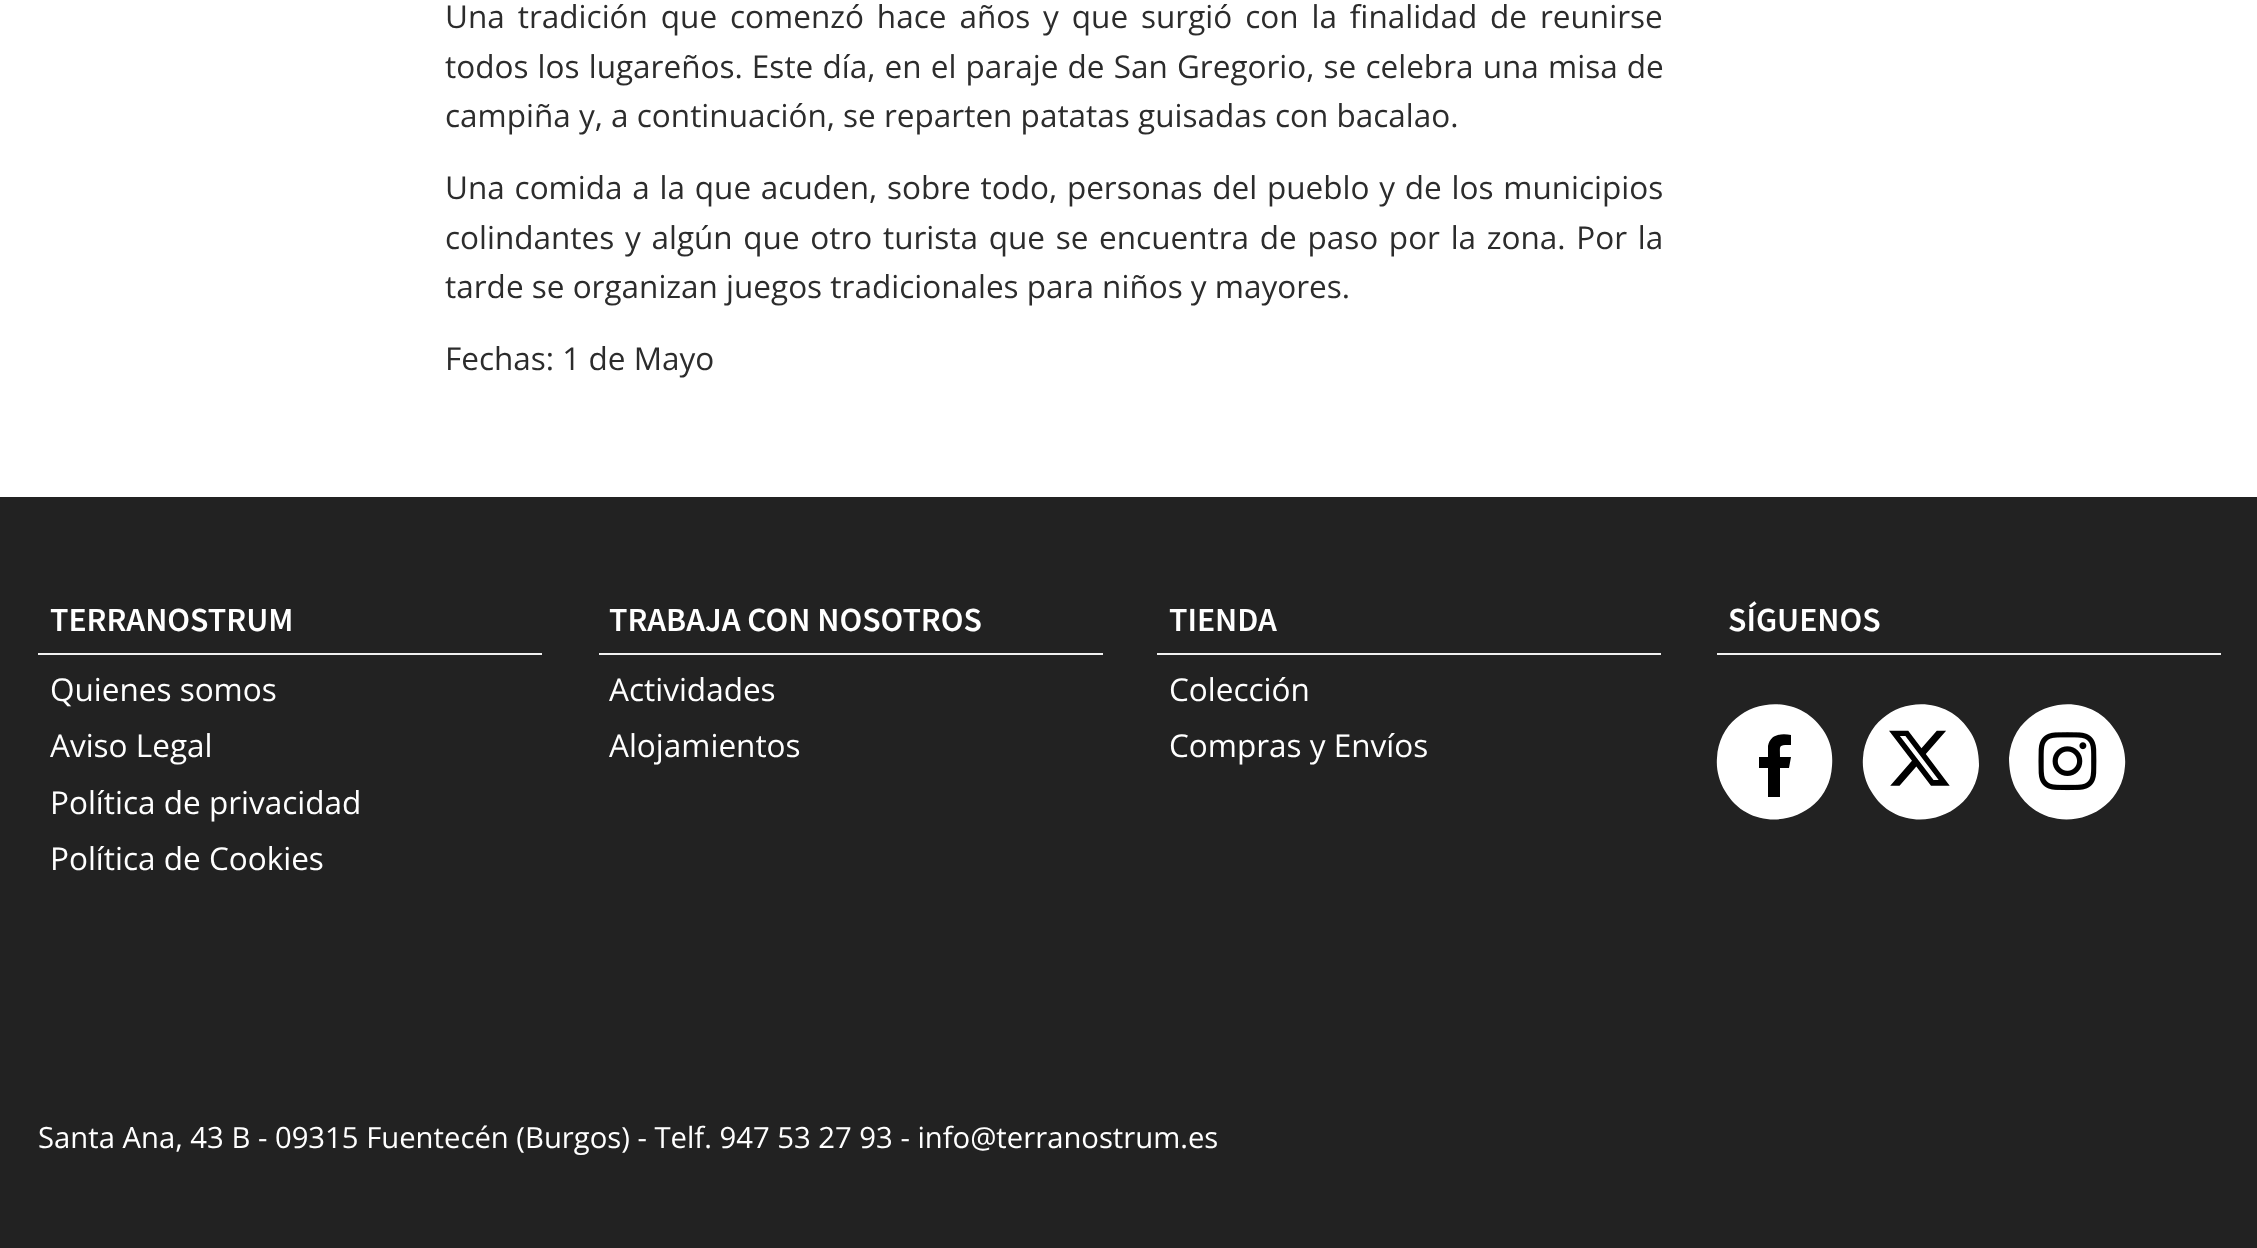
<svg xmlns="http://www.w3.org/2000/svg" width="2257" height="1248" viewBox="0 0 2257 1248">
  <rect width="100%" height="100%" fill="#fff"/>
  <path d="M0 497h2257v751H0z" fill="#222"/>
  <path d="M38 653h504v2H38z" fill="#f1f1f1"/>
  <path d="M599 653h504v2H599z" fill="#f1f1f1"/>
  <path d="M1157 653h504v2H1157z" fill="#f1f1f1"/>
  <path d="M1717 653h504v2H1717z" fill="#f1f1f1"/>
  <path d="M1825 733C1831 743 1833 754 1832 766C1829 822 1753 840 1725 791C1719 781 1716 769 1717 758C1720 701 1796 684 1825 733Z" fill="#fff"/>
  <path d="M1791 735V745C1778 745 1780 745 1780 757H1791L1789 768H1780V797H1768V768H1759V757H1768V746C1770 734 1782 733 1791 735Z" fill="#000"/>
  <path d="M1971 733C1977 743 1979 754 1979 766C1975 822 1899 840 1871 791C1865 781 1862 769 1863 758C1867 701 1942 684 1971 733Z" fill="#fff"/>
  <image x="1889" y="730" width="61" height="56" href="img/1.png"/>
  <path d="M2117 733C2123 743 2126 754 2125 766C2121 822 2046 840 2017 791C2011 781 2009 769 2009 758C2013 701 2089 684 2117 733Z" fill="#fff"/>
  <image x="2038" y="732" width="59" height="59" href="img/2.png"/>
  <g font-family="Open Sans" font-size="31.5" fill="#2c2c2c">
    <text x="445" y="28" word-spacing="4.75">Una tradición que comenzó hace años y que surgió con la finalidad de reunirse</text>
    <text x="445" y="78" word-spacing="1">todos los lugareños. Este día, en el paraje de San Gregorio, se celebra una misa de</text>
    <text x="445" y="127">campiña y, a continuación, se reparten patatas guisadas con bacalao.</text>
    <text x="445" y="199" word-spacing="1.6">Una comida a la que acuden, sobre todo, personas del pueblo y de los municipios</text>
    <text x="445" y="249" word-spacing="2.5">colindantes y algún que otro turista que se encuentra de paso por la zona. Por la</text>
    <text x="445" y="298">tarde se organizan juegos tradicionales para niños y mayores.</text>
    <text x="445" y="370">Fechas: 1 de Mayo</text>
  </g>
  <text x="50" y="631" font-family="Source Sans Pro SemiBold" font-size="33.75" font-weight="600" fill="#fff">TERRANOSTRUM</text>
  <g font-family="Open Sans" font-size="31.5" fill="#fff">
    <text x="50" y="701">Quienes somos</text>
    <text x="50" y="757">Aviso Legal</text>
    <text x="50" y="814">Política de privacidad</text>
    <text x="50" y="870">Política de Cookies</text>
  </g>
  <text x="609" y="631" font-family="Source Sans Pro SemiBold" font-size="33.75" font-weight="600" fill="#fff">TRABAJA CON NOSOTROS</text>
  <g font-family="Open Sans" font-size="31.5" fill="#fff">
    <text x="609" y="701">Actividades</text>
    <text x="609" y="757">Alojamientos</text>
  </g>
  <text x="1169" y="631" font-family="Source Sans Pro SemiBold" font-size="33.75" font-weight="600" fill="#fff">TIENDA</text>
  <g font-family="Open Sans" font-size="31.5" fill="#fff">
    <text x="1169" y="701">Colección</text>
    <text x="1169" y="757">Compras y Envíos</text>
  </g>
  <text x="1728" y="631" font-family="Source Sans Pro SemiBold" font-size="33.75" font-weight="600" fill="#fff">SÍGUENOS</text>
  <text x="38" y="1148" font-family="Open Sans" font-size="29.25" fill="#fff">Santa Ana, 43 B - 09315 Fuentecén (Burgos) - Telf. 947 53 27 93 - info@terranostrum.es</text>
</svg>
